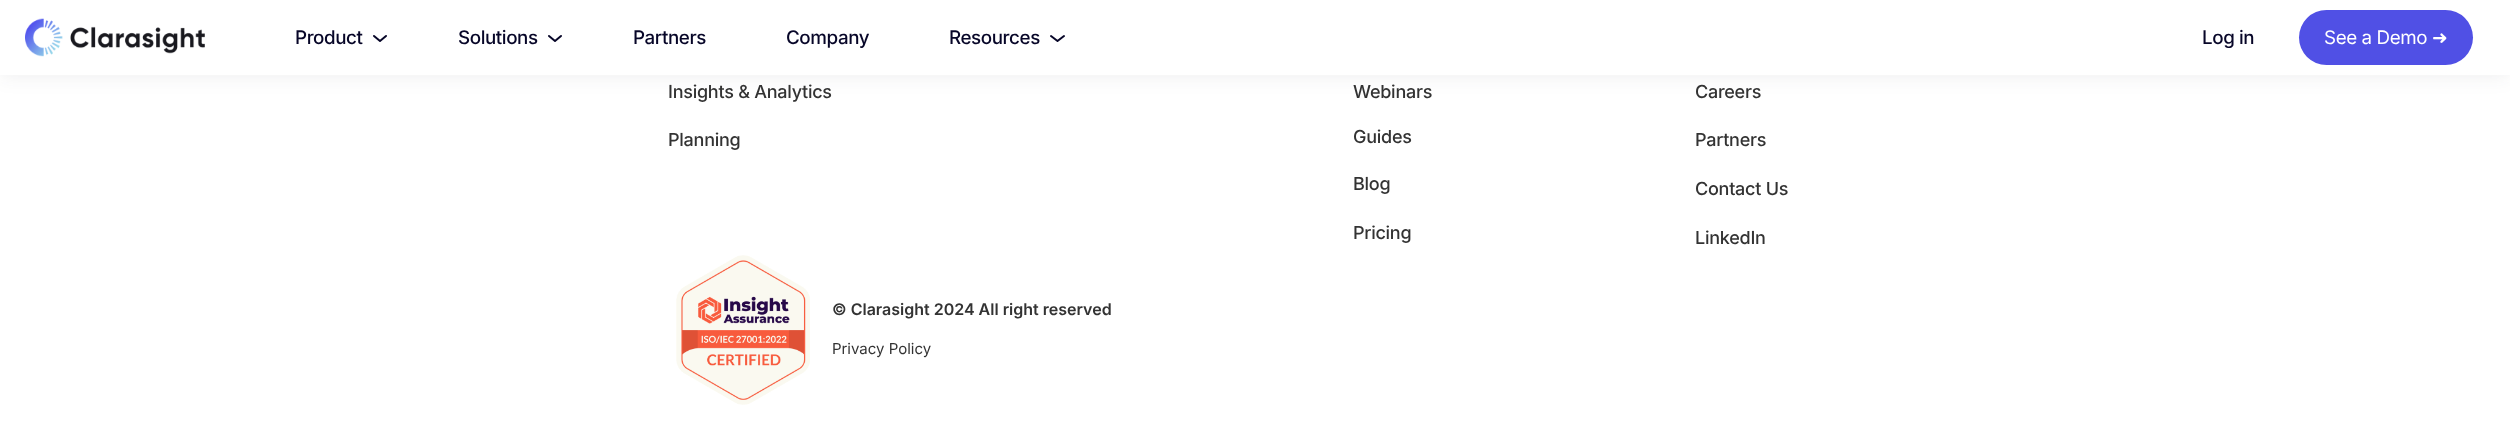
<svg xmlns="http://www.w3.org/2000/svg" width="2510" height="431" viewBox="0 0 2510 431">
  <rect width="100%" height="100%" fill="#fff"/>
  <path d="M0 1h2510v75H0z" fill="#20203714" filter="blur(9.5px)"/>
  <path d="M0 0h2510v75H0z" fill="#fff"/>
  <image x="25" y="18" width="180" height="39" href="img/1.png"/>
  <path d="M374 36L380 41L386 36" fill="none" stroke="#070628" stroke-width="2" stroke-linecap="round" stroke-linejoin="round"/>
  <path d="M549 36L555 41L561 36" fill="none" stroke="#070628" stroke-width="2" stroke-linecap="round" stroke-linejoin="round"/>
  <path d="M1051 36L1057.5 41L1064 36" fill="none" stroke="#070628" stroke-width="2" stroke-linecap="round" stroke-linejoin="round"/>
  <rect x="2299" y="10" width="174" height="55" rx="27.5" fill="#5050e5"/>
  <image x="676" y="255" width="134" height="150" href="img/2.png"/>
  <g font-family="Inter" font-size="18.75" font-weight="500" letter-spacing="-0.4" fill="#070628">
    <text x="295" y="44">Product</text>
    <text x="458" y="44">Solutions</text>
    <text x="633" y="44">Partners</text>
    <text x="786" y="44">Company</text>
    <text x="949" y="44">Resources</text>
    <text x="2202" y="44">Log in</text>
  </g>
  <text x="2324" y="44" font-family="Inter" font-size="18.75" letter-spacing="-0.4" fill="#fff">See a Demo</text>
  <text x="2432" y="44" font-family="DejaVu Sans" font-size="18.75" letter-spacing="-0.4" fill="#fff">➜</text>
  <g font-family="Inter" font-size="18" font-weight="500" letter-spacing="-0.25" fill="#333">
    <text x="668" y="98">Insights &amp; Analytics</text>
    <text x="668" y="146">Planning</text>
    <text x="1353" y="98">Webinars</text>
    <text x="1353" y="143">Guides</text>
    <text x="1353" y="190">Blog</text>
    <text x="1353" y="239">Pricing</text>
    <text x="1695" y="98">Careers</text>
    <text x="1695" y="146">Partners</text>
    <text x="1695" y="195">Contact Us</text>
    <text x="1695" y="244">LinkedIn</text>
  </g>
  <text x="832" y="315" font-family="Inter" font-size="16" font-weight="600" fill="#333">© Clarasight 2024 All right reserved</text>
  <text x="832" y="354" font-family="Inter" font-size="15" fill="#333">Privacy Policy</text>
</svg>
